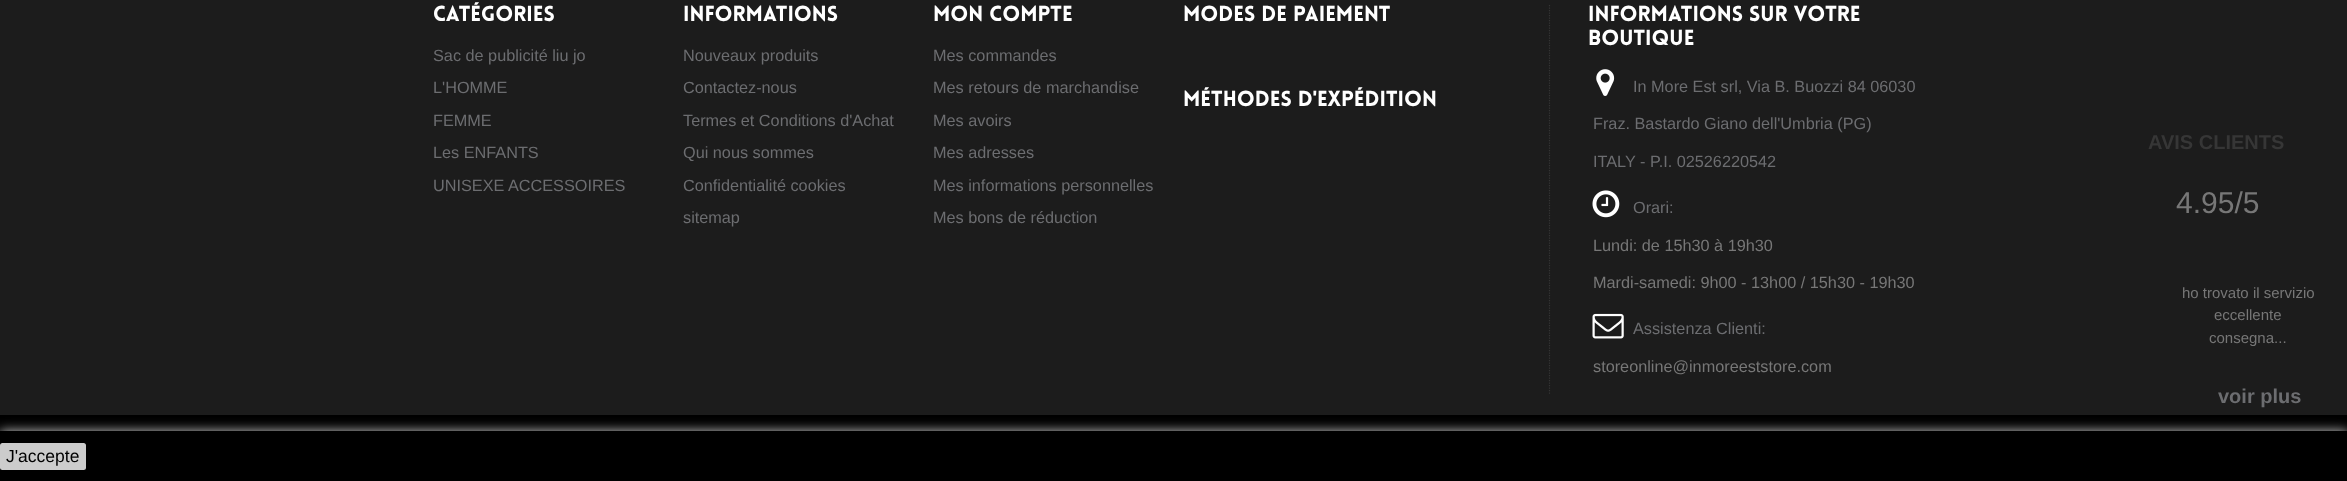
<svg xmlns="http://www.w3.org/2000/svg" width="2347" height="481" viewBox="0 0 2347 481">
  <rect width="100%" height="100%" fill="#1c1c1c"/>
  <path d="M0 415h2347v16H0z" fill="#000"/>
  <path d="M1549.5 5V394" fill="none" stroke="#353535" stroke-width="1.2" stroke-dasharray="1.25 1.25"/>
  <image x="1596" y="69" width="19" height="27" href="img/1.png"/>
  <image x="1592" y="190" width="28" height="28" href="img/2.png"/>
  <image x="1592" y="313" width="32" height="26" href="img/3.png"/>
  <path d="M0 431h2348v50H0z" fill="#ccc" filter="blur(6px)"/>
  <path d="M0 431h2347v50H0z" fill="#000"/>
  <rect y="443" width="86" height="27" rx="2.5" fill="#ccc"/>
  <text x="433" y="21" font-family="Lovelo" font-size="21.25" font-weight="900" fill="#fff">CATÉGORIES</text>
  <g font-family="Liberation Sans" font-size="16.25" fill="#6c6d70">
    <text x="433" y="61">Sac de publicité liu jo</text>
    <text x="433" y="93">L'HOMME</text>
    <text x="433" y="126">FEMME</text>
    <text x="433" y="158">Les ENFANTS</text>
    <text x="433" y="191">UNISEXE ACCESSOIRES</text>
  </g>
  <text x="683" y="21" font-family="Lovelo" font-size="21.25" font-weight="900" fill="#fff">INFORMATIONS</text>
  <g font-family="Liberation Sans" font-size="16.25" fill="#6c6d70">
    <text x="683" y="61">Nouveaux produits</text>
    <text x="683" y="93">Contactez-nous</text>
    <text x="683" y="126">Termes et Conditions d'Achat</text>
    <text x="683" y="158">Qui nous sommes</text>
    <text x="683" y="191">Confidentialité cookies</text>
    <text x="683" y="223">sitemap</text>
  </g>
  <text x="933" y="21" font-family="Lovelo" font-size="21.25" font-weight="900" fill="#fff">MON COMPTE</text>
  <g font-family="Liberation Sans" font-size="16.25" fill="#6c6d70">
    <text x="933" y="61">Mes commandes</text>
    <text x="933" y="93">Mes retours de marchandise</text>
    <text x="933" y="126">Mes avoirs</text>
    <text x="933" y="158">Mes adresses</text>
    <text x="933" y="191">Mes informations personnelles</text>
    <text x="933" y="223">Mes bons de réduction</text>
  </g>
  <g font-family="Lovelo" font-size="21.25" font-weight="900" fill="#fff">
    <text x="1183" y="21">MODES DE PAIEMENT</text>
    <text x="1183" y="106">MÉTHODES D'EXPÉDITION</text>
    <text x="1588" y="21">INFORMATIONS SUR VOTRE</text>
    <text x="1588" y="45">BOUTIQUE</text>
  </g>
  <g font-family="Liberation Sans" font-size="16.25" fill="#6c6d70">
    <text x="1633" y="92">In More Est srl, Via B. Buozzi 84 06030</text>
    <text x="1593" y="129">Fraz. Bastardo Giano dell'Umbria (PG)</text>
    <text x="1593" y="167">ITALY - P.I. 02526220542</text>
    <text x="1633" y="213">Orari:</text>
  </g>
  <g font-family="Liberation Sans" font-size="16.25" fill="#777">
    <text x="1593" y="251">Lundi: de 15h30 à 19h30</text>
    <text x="1593" y="288">Mardi-samedi: 9h00 - 13h00 / 15h30 - 19h30</text>
  </g>
  <text x="1633" y="334" font-family="Liberation Sans" font-size="16.25" fill="#6c6d70">Assistenza Clienti:</text>
  <text x="1593" y="372" font-family="Liberation Sans" font-size="16.25" fill="#777">storeonline@inmoreeststore.com</text>
  <text x="2148" y="149" font-family="Liberation Sans" font-size="20" font-weight="bold" fill="#363636">AVIS CLIENTS</text>
  <text x="2176" y="213" font-family="Liberation Sans" font-size="30" fill="#777">4.95/5</text>
  <g font-family="Liberation Sans" font-size="15" fill="#777">
    <text x="2182" y="298">ho trovato il servizio</text>
    <text x="2214" y="320">eccellente</text>
    <text x="2209" y="343">consegna...</text>
  </g>
  <text x="2218" y="403" font-family="Liberation Sans" font-size="20" font-weight="bold" fill="#6c6d70">voir plus</text>
  <text x="6" y="462" font-family="Liberation Sans" font-size="17.5" fill="#000">J'accepte</text>
</svg>
